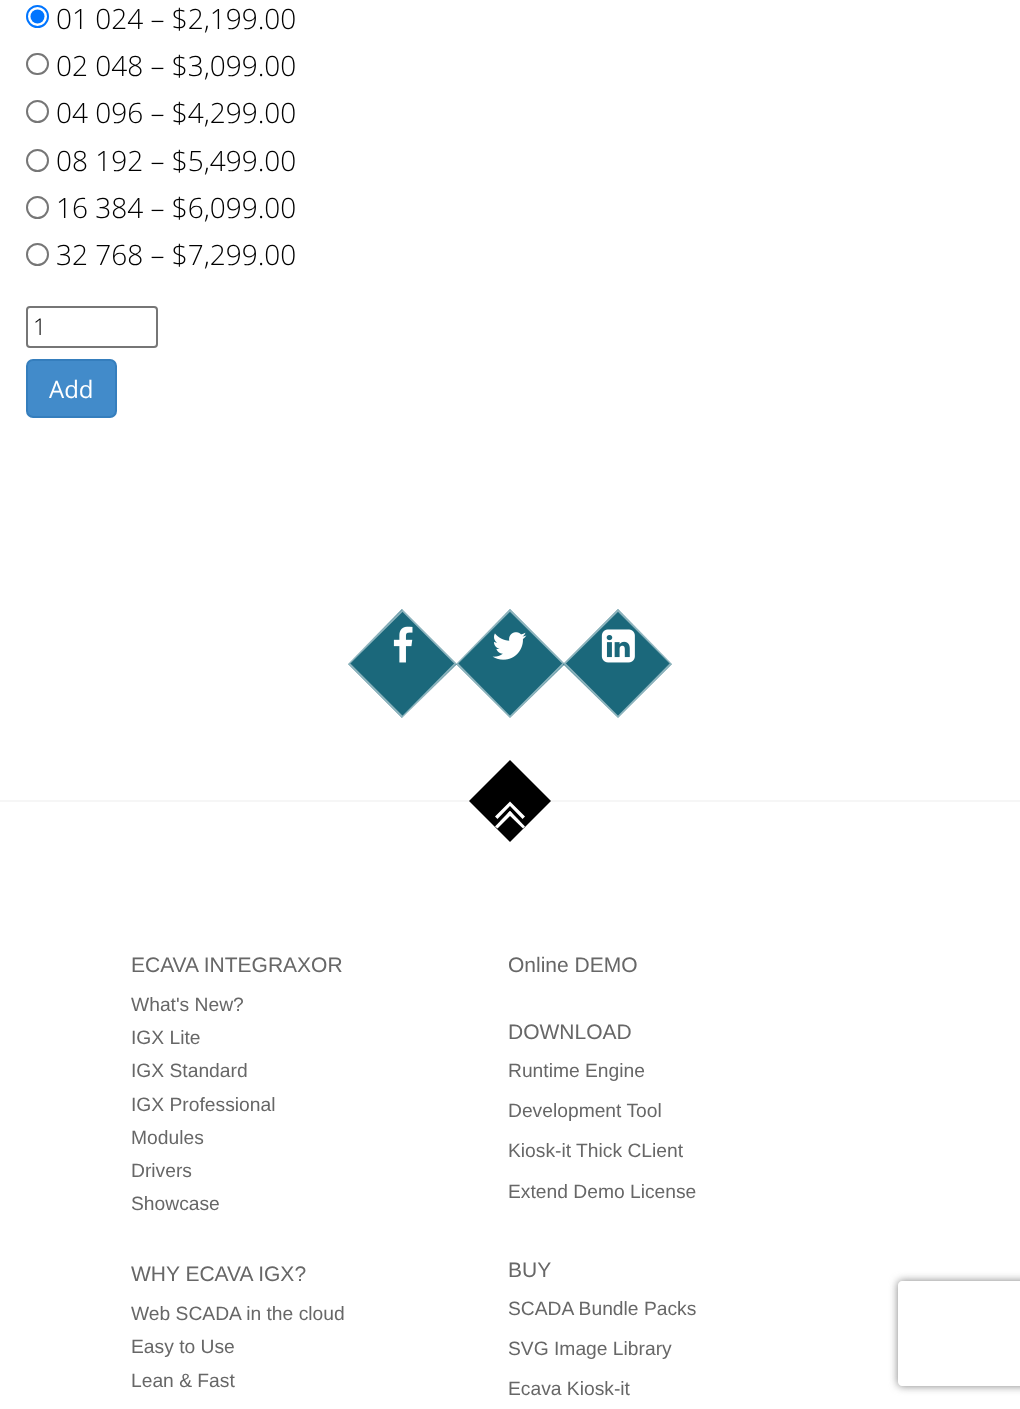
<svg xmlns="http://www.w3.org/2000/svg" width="1020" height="1409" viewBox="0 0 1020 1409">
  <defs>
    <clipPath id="clip1"><path d="M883 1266H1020V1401H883ZM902 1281H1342C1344 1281 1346 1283 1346 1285V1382C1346 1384 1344 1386 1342 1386H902C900 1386 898 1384 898 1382V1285C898 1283 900 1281 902 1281Z" clip-rule="evenodd"/></clipPath>
  </defs>
  <rect width="100%" height="100%" fill="#fff"/>
  <circle cx="37.5" cy="16.5" r="10.5" fill="none" stroke="#0075ff" stroke-width="2"/>
  <circle cx="37.5" cy="16.5" r="7" fill="#0075ff"/>
  <rect x="27" y="54" width="21" height="20" rx="10" fill="none" stroke="#767676" stroke-width="2"/>
  <circle cx="37.5" cy="111.5" r="10.5" fill="none" stroke="#767676" stroke-width="2"/>
  <circle cx="37.5" cy="160.5" r="10.5" fill="none" stroke="#767676" stroke-width="2"/>
  <circle cx="37.5" cy="207.5" r="10.5" fill="none" stroke="#767676" stroke-width="2"/>
  <circle cx="37.5" cy="254.5" r="10.5" fill="none" stroke="#767676" stroke-width="2"/>
  <rect x="27" y="307" width="130" height="40" rx="3" fill="none" stroke="#767676" stroke-width="2"/>
  <rect x="27" y="360" width="89" height="57" rx="6" fill="#428bca" stroke="#357ebd" stroke-width="2"/>
  <path d="M402 609L457 664L402 718L348 664Z" fill="#1b687b"/>
  <path d="M402.5 610.5L455.5 663.5L402.5 717L349 663.5Z" fill="none" stroke="#ffffff80" stroke-width="1.8"/>
  <image x="393" y="626" width="20" height="37" href="img/1.png"/>
  <path d="M510 609L565 664L510 718L456 664Z" fill="#1b687b"/>
  <path d="M510 610.5L563.5 663.5L510 717L457 663.5Z" fill="none" stroke="#ffffff80" stroke-width="1.8"/>
  <image x="492" y="632" width="35" height="28" href="img/2.png"/>
  <path d="M618 609L672 664L618 718L563 664Z" fill="#1b687b"/>
  <path d="M618 610.5L671 663.5L618 717L564.5 663.5Z" fill="none" stroke="#ffffff80" stroke-width="1.8"/>
  <image x="601" y="629" width="34" height="34" href="img/3.png"/>
  <path d="M0 800h1020v2H0z" fill="#f6f6f6"/>
  <path d="M510 760L551 801L510 842L469 801Z" fill="#000"/>
  <path d="M510 801.5L495 816.5L500 821.5L510 811L520 821.5L525 816.5Z" fill="#fff"/>
  <path d="M510 806L495 821.5L497.5 824L510 811L522.5 824L525 821.5Z" fill="#000"/>
  <path d="M510 811L525 826.5L523 828.5L507.5 813.5Z" fill="#fff"/>
  <path d="M510 811L512.5 813.5L497.5 828.5L495 826.5Z" fill="#fff"/>
  <g clip-path="url(#clip1)">
    <rect x="898" y="1281" width="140" height="105" rx="4" fill="#808080" filter="blur(4.5px)"/>
  </g>
  <g font-family="Open Sans" font-size="28" font-weight="300" fill="#000">
    <text x="56" y="29">01 024 – $2,199.00</text>
    <text x="56" y="76">02 048 – $3,099.00</text>
    <text x="56" y="123">04 096 – $4,299.00</text>
    <text x="56" y="171">08 192 – $5,499.00</text>
    <text x="56" y="218">16 384 – $6,099.00</text>
    <text x="56" y="265">32 768 – $7,299.00</text>
  </g>
  <text x="33" y="335" font-family="Open Sans" font-size="23" font-weight="300" fill="#000">1</text>
  <text x="49" y="398" font-family="Open Sans" font-size="24" fill="#fff">Add</text>
  <text x="131" y="972" font-family="Liberation Sans" font-size="21" fill="#676767">ECAVA INTEGRAXOR</text>
  <g font-family="Liberation Sans" font-size="19.25" fill="#676767">
    <text x="131" y="1011">What's New?</text>
    <text x="131" y="1044">IGX Lite</text>
    <text x="131" y="1077">IGX Standard</text>
    <text x="131" y="1111">IGX Professional</text>
    <text x="131" y="1144">Modules</text>
    <text x="131" y="1177">Drivers</text>
    <text x="131" y="1210">Showcase</text>
  </g>
  <text x="131" y="1281" font-family="Liberation Sans" font-size="21" fill="#676767">WHY ECAVA IGX?</text>
  <g font-family="Liberation Sans" font-size="19.25" fill="#676767">
    <text x="131" y="1320">Web SCADA in the cloud</text>
    <text x="131" y="1353">Easy to Use</text>
    <text x="131" y="1387">Lean &amp; Fast</text>
  </g>
  <g font-family="Liberation Sans" font-size="21" fill="#676767">
    <text x="508" y="972">Online DEMO</text>
    <text x="508" y="1039">DOWNLOAD</text>
  </g>
  <g font-family="Liberation Sans" font-size="19.25" fill="#676767">
    <text x="508" y="1077">Runtime Engine</text>
    <text x="508" y="1117">Development Tool</text>
    <text x="508" y="1157">Kiosk-it Thick CLient</text>
    <text x="508" y="1198">Extend Demo License</text>
  </g>
  <text x="508" y="1277" font-family="Liberation Sans" font-size="21" fill="#676767">BUY</text>
  <g font-family="Liberation Sans" font-size="19.25" fill="#676767">
    <text x="508" y="1315">SCADA Bundle Packs</text>
    <text x="508" y="1355">SVG Image Library</text>
    <text x="508" y="1395">Ecava Kiosk-it</text>
  </g>
</svg>
